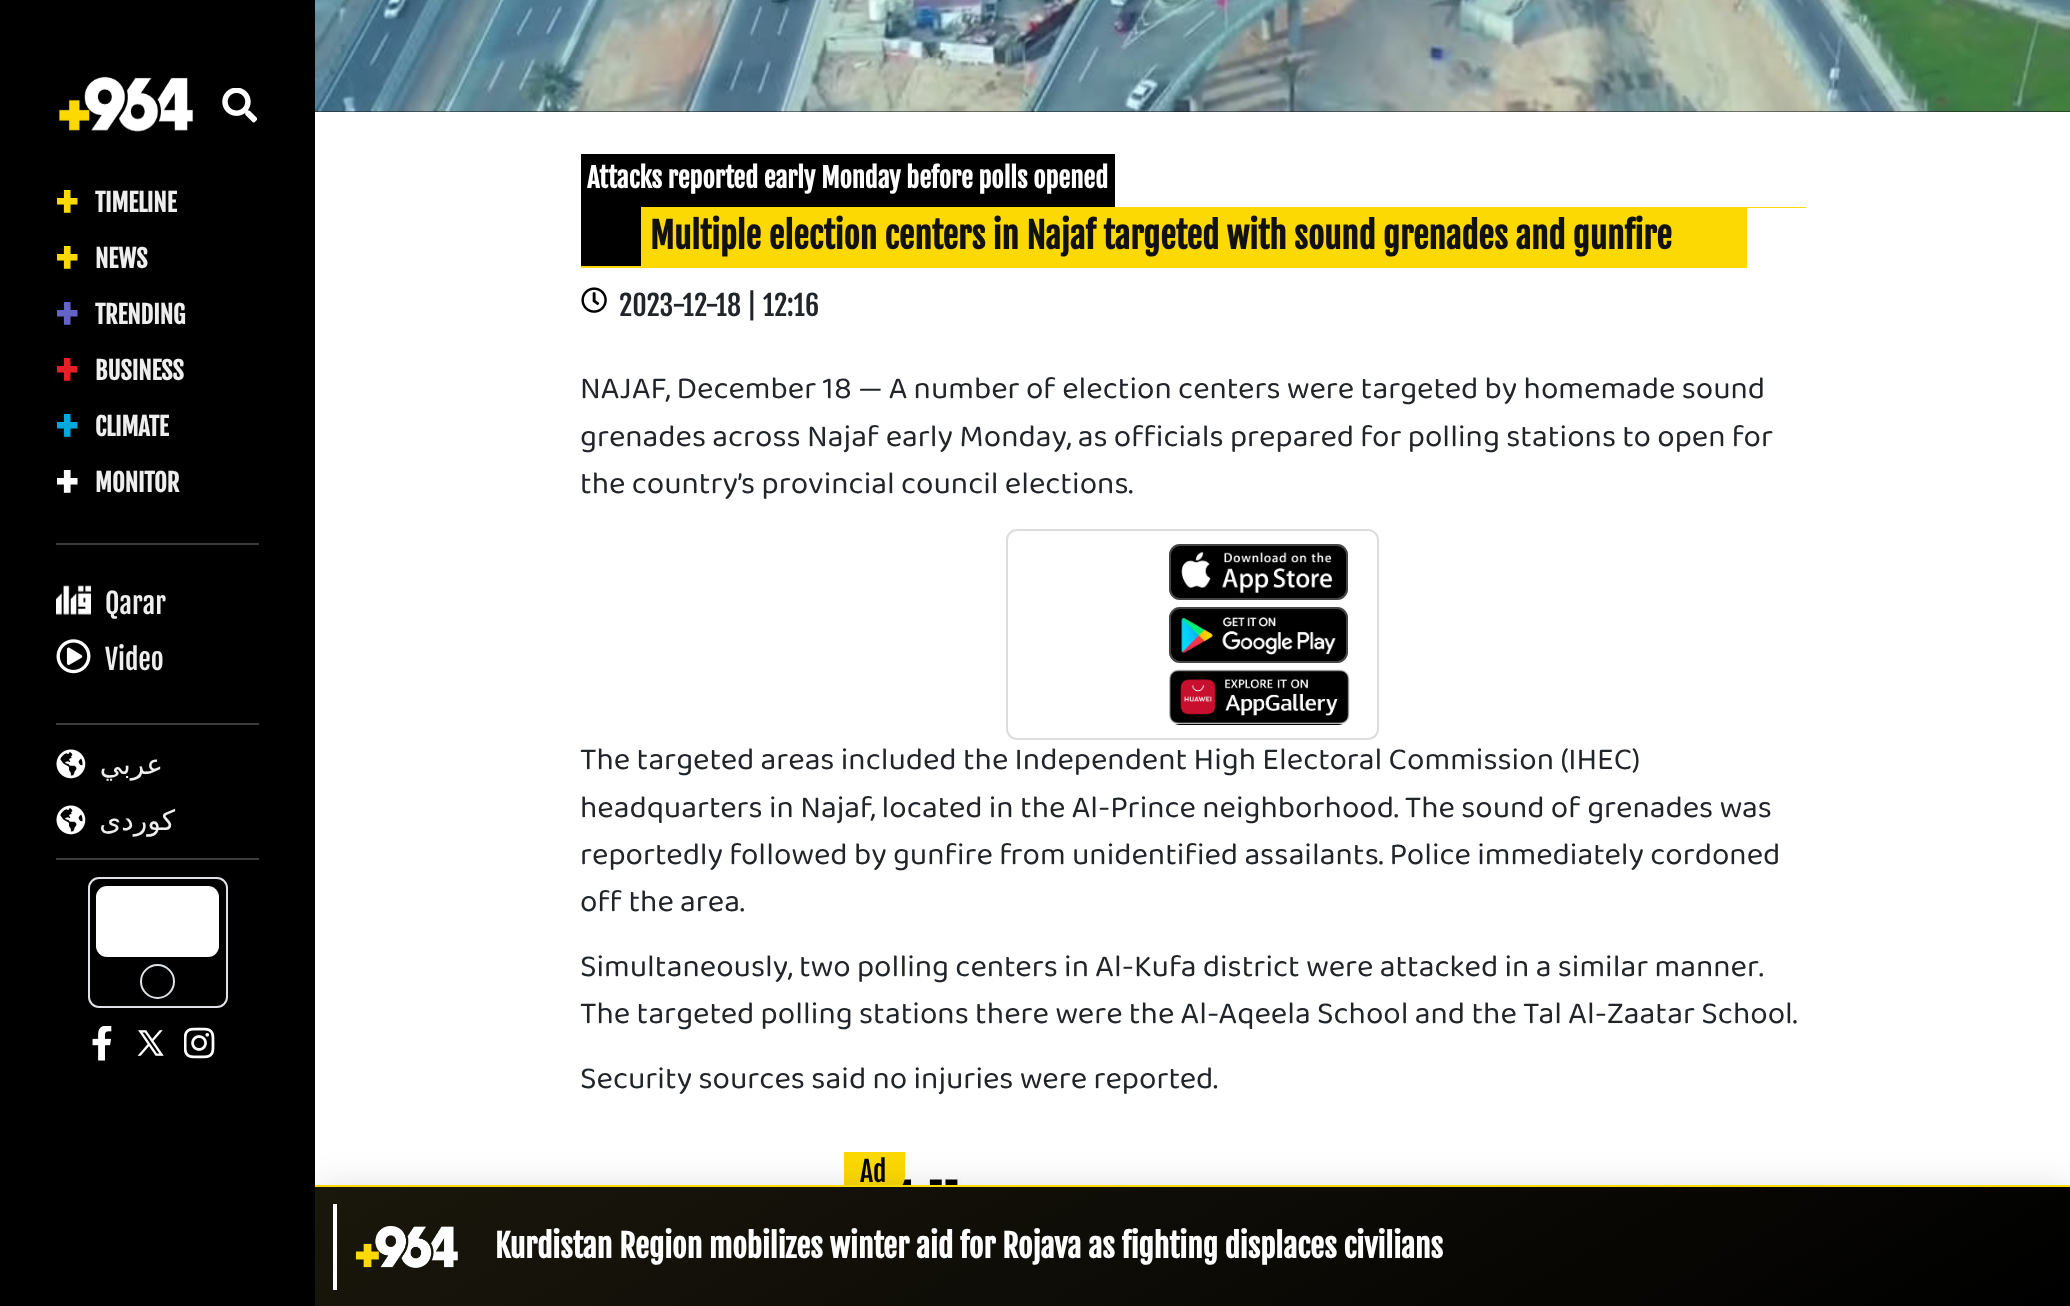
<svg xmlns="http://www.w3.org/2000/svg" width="2070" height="1306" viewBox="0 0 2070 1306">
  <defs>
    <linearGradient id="g1" gradientUnits="userSpaceOnUse" x1="1438" y1="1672" x2="947" y2="822"><stop offset="0" stop-color="#000"/><stop offset="1" stop-color="#1a170c"/></linearGradient>
  </defs>
  <rect width="100%" height="100%" fill="#fff"/>
  <image x="902" y="1178" width="624" height="7" href="img/14.png"/>
  <path d="M844 1152H905V1176C905 1186 897 1194 887 1194H844Z" fill="#fcd903"/>
  <path d="M317 1187h1752v119H317z" fill="#00000021" filter="blur(17.5px)"/>
  <path d="M0 0h315v1306H0z" fill="#000"/>
  <image x="59" y="76" width="135" height="56" href="img/1.png"/>
  <image x="222" y="88" width="35" height="35" href="img/2.png"/>
  <path d="M56 543h203v2H56z" fill="#3b3b3b"/>
  <image x="56" y="585" width="35" height="30" href="img/3.png"/>
  <image x="56" y="639" width="35" height="35" href="img/4.png"/>
  <path d="M56 723h203v2H56z" fill="#3b3b3b"/>
  <image x="56" y="749" width="30" height="30" href="img/5.png"/>
  <image x="56" y="805" width="30" height="30" href="img/5.png"/>
  <path d="M56 858h203v2H56z" fill="#3b3b3b"/>
  <rect x="89" y="878" width="138" height="129" rx="10" fill="none" stroke="#dee2e6" stroke-width="2"/>
  <rect x="96" y="886" width="123" height="71" rx="11" fill="#fff"/>
  <circle cx="157.5" cy="981.5" r="16.5" fill="none" stroke="#dee2e6" stroke-width="2"/>
  <image x="92" y="1026" width="20" height="35" href="img/6.png"/>
  <image x="137" y="1030" width="27" height="26" href="img/7.png"/>
  <image x="184" y="1027" width="31" height="32" href="img/8.png"/>
  <path d="M315 111h1755v1H315z" fill="#111"/>
  <image x="315" y="0" width="1755" height="112" href="img/9.png"/>
  <path d="M581 154h534v53H581z" fill="#000"/>
  <path d="M581 207h1225v61H581z" fill="#fcd903"/>
  <path d="M581 207h60v59H581z" fill="#000"/>
  <path d="M1747 208h59v60H1747z" fill="#fff"/>
  <image x="581" y="287" width="26" height="26" href="img/10.png"/>
  <rect x="1007" y="530" width="371" height="209" rx="10" fill="none" stroke="#ddd" stroke-width="2"/>
  <rect x="1169" y="544" width="179" height="56" rx="11" fill="#000"/>
  <rect x="1170" y="545" width="177" height="54" rx="10" fill="none" stroke="#ffffff45" stroke-width="2"/>
  <image x="1181" y="551" width="152" height="42" href="img/11.png"/>
  <rect x="1169" y="607" width="179" height="56" rx="11" fill="#000"/>
  <rect x="1170" y="608" width="177" height="54" rx="10" fill="none" stroke="#ffffff45" stroke-width="2"/>
  <image x="1181" y="617" width="155" height="38" href="img/12.png"/>
  <rect x="1169" y="670" width="180" height="55" rx="11" fill="#000"/>
  <image x="1169" y="669" width="181" height="55" href="img/13.png"/>
  <path d="M315 1187h1755v119H315z" fill="url(#g1)"/>
  <path d="M315 1185h1755v2H315z" fill="#fcd903"/>
  <path d="M333 1204h4v86H333z" fill="#fff"/>
  <image x="355" y="1226" width="103" height="42" href="img/15.png"/>
  <text x="56" y="222" font-family="Fjalla One" font-size="52" font-weight="bold" fill="#fcd903">+</text>
  <text x="95" y="212" font-family="Fjalla One" font-size="24.5" font-weight="bold" fill="#eee">TIMELINE</text>
  <text x="56" y="278" font-family="Fjalla One" font-size="52" font-weight="bold" fill="#fcd903">+</text>
  <text x="95" y="268" font-family="Fjalla One" font-size="24.5" font-weight="bold" fill="#eee">NEWS</text>
  <text x="56" y="334" font-family="Fjalla One" font-size="52" font-weight="bold" fill="#6464c6">+</text>
  <text x="95" y="324" font-family="Fjalla One" font-size="24.5" font-weight="bold" fill="#eee">TRENDING</text>
  <text x="56" y="390" font-family="Fjalla One" font-size="52" font-weight="bold" fill="#e51e27">+</text>
  <text x="95" y="380" font-family="Fjalla One" font-size="24.5" font-weight="bold" fill="#eee">BUSINESS</text>
  <text x="56" y="446" font-family="Fjalla One" font-size="52" font-weight="bold" fill="#00a9dd">+</text>
  <text x="95" y="436" font-family="Fjalla One" font-size="24.5" font-weight="bold" fill="#eee">CLIMATE</text>
  <text x="56" y="502" font-family="Fjalla One" font-size="52" font-weight="bold" fill="#fff">+</text>
  <text x="95" y="492" font-family="Fjalla One" font-size="24.5" font-weight="bold" fill="#eee">MONITOR</text>
  <g font-family="Fjalla One" font-size="28" fill="#eee">
    <text x="105" y="614">Qarar</text>
    <text x="105" y="670">Video</text>
  </g>
  <g font-family="DejaVu Sans" font-size="28" direction="rtl" fill="#eee">
    <text x="163" y="774">عربي</text>
    <text x="175" y="830">كوردى</text>
  </g>
  <text x="587" y="188" font-family="Fjalla One" font-size="26.6" font-weight="bold" fill="#fff">Attacks reported early Monday before polls opened</text>
  <text x="650" y="249" font-family="Fjalla One" font-size="35" font-weight="bold" fill="#111">Multiple election centers in Najaf targeted with sound grenades and gunfire</text>
  <text x="619" y="316" font-family="Fjalla One" font-size="28" fill="#212529">2023-12-18 | 12:16</text>
  <g font-family="'Baloo Bhaijaan 2'" font-size="31.5" fill="#212529">
    <text x="580" y="398">NAJAF, December 18 — A number of election centers were targeted by homemade sound</text>
    <text x="580" y="446">grenades across Najaf early Monday, as officials prepared for polling stations to open for</text>
    <text x="580" y="493">the country’s provincial council elections.</text>
    <text x="580" y="769">The targeted areas included the Independent High Electoral Commission (IHEC)</text>
    <text x="580" y="817">headquarters in Najaf, located in the Al-Prince neighborhood. The sound of grenades was</text>
    <text x="580" y="864">reportedly followed by gunfire from unidentified assailants. Police immediately cordoned</text>
    <text x="580" y="911">off the area.</text>
    <text x="580" y="976">Simultaneously, two polling centers in Al-Kufa district were attacked in a similar manner.</text>
    <text x="580" y="1023">The targeted polling stations there were the Al-Aqeela School and the Tal Al-Zaatar School.</text>
    <text x="580" y="1088">Security sources said no injuries were reported.</text>
  </g>
  <text x="860" y="1182" font-family="Fjalla One" font-size="28" fill="#000">Ad</text>
  <text x="495" y="1258" font-family="Fjalla One" font-size="31.5" font-weight="bold" fill="#fff">Kurdistan Region mobilizes winter aid for Rojava as fighting displaces civilians</text>
</svg>
